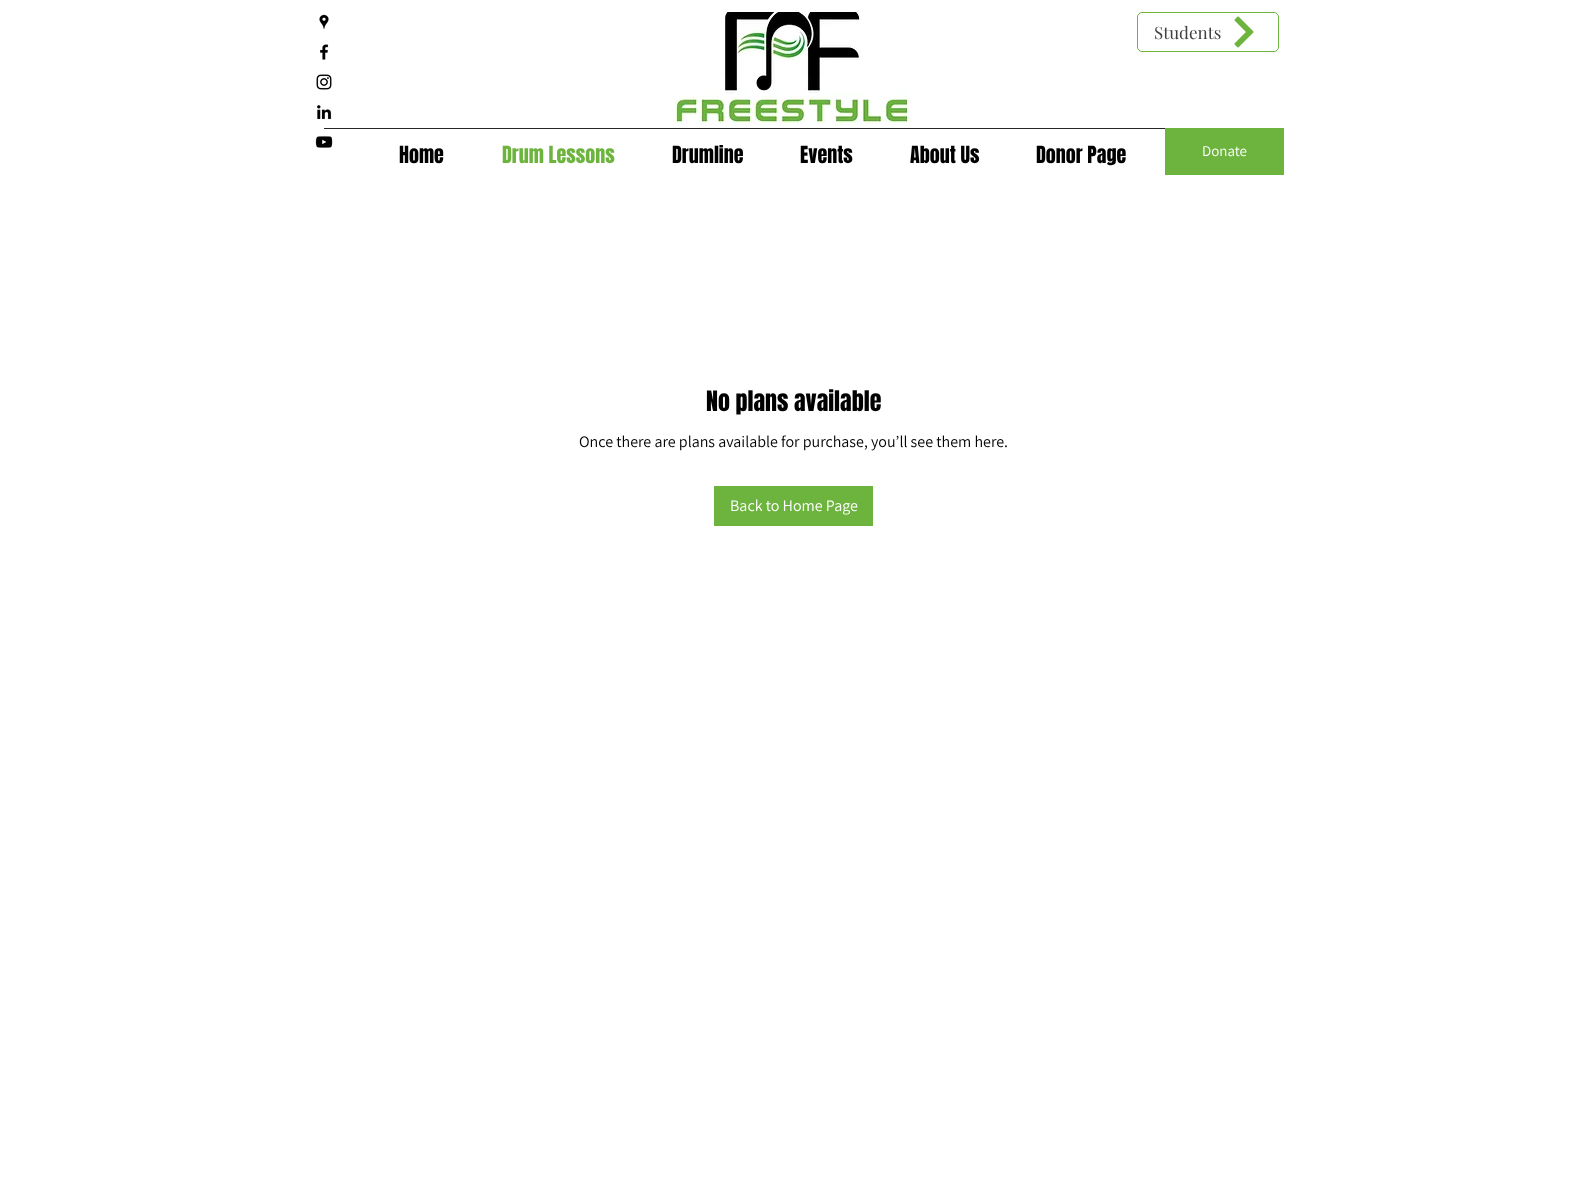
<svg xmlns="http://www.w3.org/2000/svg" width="1587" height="1204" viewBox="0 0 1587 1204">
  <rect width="100%" height="100%" fill="#fff"/>
  <image x="319" y="14" width="10" height="15" href="img/1.png"/>
  <image x="320" y="44" width="9" height="16" href="img/2.png"/>
  <image x="316" y="74" width="16" height="16" href="img/3.png"/>
  <image x="317" y="105" width="15" height="15" href="img/4.png"/>
  <image x="315" y="136" width="18" height="12" href="img/5.png"/>
  <image x="673" y="12" width="240" height="113" href="img/6.png"/>
  <rect x="1137.5" y="12.5" width="141" height="39" rx="4.5" fill="none" stroke="#6db43e"/>
  <image x="1234" y="16" width="20" height="32" href="img/7.png"/>
  <path d="M324 128h841v1H324z" fill="#262626"/>
  <path d="M1165 128h119v47H1165z" fill="#6db43e"/>
  <path d="M714 486h159v40H714z" fill="#6db43e"/>
  <text x="1154" y="39" font-family="Playfair Display" font-size="17" fill="#404040">Students</text>
  <text x="399" y="163" font-family="Anton" font-size="20" fill="#000">Home</text>
  <text x="502" y="163" font-family="Anton" font-size="20" fill="#6db43e">Drum Lessons</text>
  <g font-family="Anton" font-size="20" fill="#000">
    <text x="672" y="163">Drumline</text>
    <text x="800" y="163">Events</text>
    <text x="910" y="163">About Us</text>
    <text x="1036" y="163">Donor Page</text>
  </g>
  <text x="1202" y="156" font-family="Assistant" font-size="15" fill="#fff">Donate</text>
  <text x="706" y="411" font-family="Anton" font-size="24" fill="#000">No plans available</text>
  <text x="579" y="447" font-family="Assistant" font-size="16" fill="#000">Once there are plans available for purchase, you’ll see them here.</text>
  <text x="730" y="511" font-family="Assistant" font-size="16" fill="#fff">Back to Home Page</text>
</svg>
